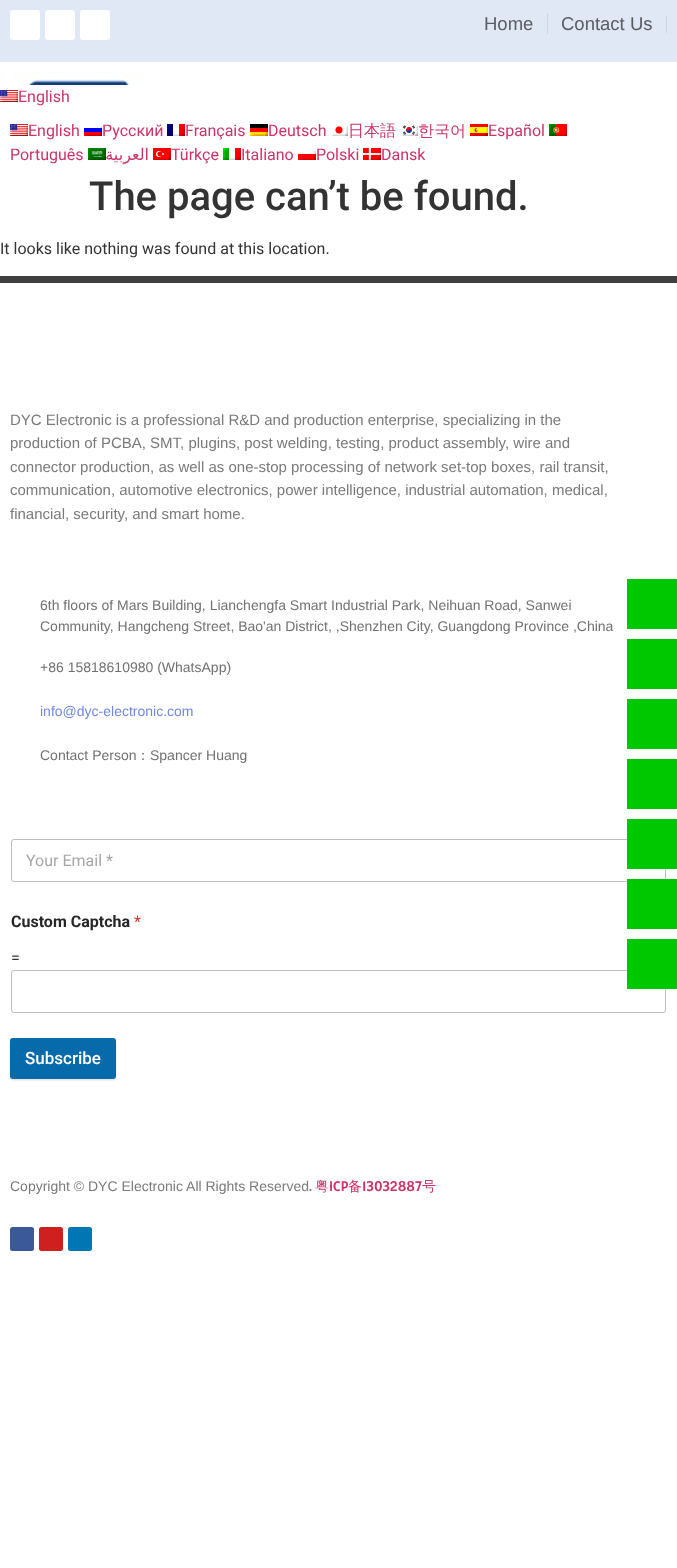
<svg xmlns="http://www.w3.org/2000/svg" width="677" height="1568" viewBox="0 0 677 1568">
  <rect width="100%" height="100%" fill="#fff"/>
  <path d="M0 0h677v62H0z" fill="#e0e8f5"/>
  <rect x="10" y="10" width="30" height="30" rx="3" fill="#fff"/>
  <rect x="45" y="10" width="30" height="30" rx="3" fill="#fff"/>
  <rect x="80" y="10" width="30" height="30" rx="3" fill="#fff"/>
  <path d="M547 13h1v21H547z" fill="#ced5e1"/>
  <path d="M666 16h1v17H666z" fill="#ced5e1"/>
  <image x="12" y="72" width="132" height="13" href="img/1.png"/>
  <image x="0" y="90" width="18" height="12" href="img/2.png"/>
  <image x="10" y="124" width="18" height="12" href="img/2.png"/>
  <image x="84" y="126" width="18" height="10" href="img/3.png"/>
  <image x="167" y="124" width="18" height="12" href="img/4.png"/>
  <image x="250" y="124" width="18" height="12" href="img/5.png"/>
  <image x="332" y="126" width="16" height="10" href="img/6.png"/>
  <image x="402" y="125" width="16" height="11" href="img/7.png"/>
  <image x="470" y="124" width="18" height="12" href="img/8.png"/>
  <image x="549" y="124" width="18" height="12" href="img/9.png"/>
  <image x="88" y="148" width="18" height="12" href="img/10.png"/>
  <image x="153" y="148" width="18" height="12" href="img/11.png"/>
  <image x="223" y="148" width="18" height="12" href="img/12.png"/>
  <image x="298" y="150" width="18" height="10" href="img/13.png"/>
  <image x="363" y="148" width="18" height="12" href="img/14.png"/>
  <path d="M0 276h677v7H0z" fill="#3f3f3f"/>
  <rect x="11.5" y="839.5" width="654" height="42" rx="2.5" fill="none" stroke="#bfbfbf"/>
  <rect x="11.5" y="970.5" width="654" height="42" rx="2.5" fill="none" stroke="#bfbfbf"/>
  <rect x="10" y="1039" width="106" height="41" rx="3" fill="#00000026" filter="blur(1px)"/>
  <rect x="10" y="1038" width="106" height="41" rx="3" fill="#066aab"/>
  <rect x="10" y="1227" width="24" height="24" rx="2.5" fill="#3b5998"/>
  <rect x="39" y="1227" width="24" height="24" rx="2.5" fill="#cd201f"/>
  <rect x="68" y="1227" width="24" height="24" rx="2.5" fill="#0077b5"/>
  <path d="M627 579h50v50H627z" fill="#00c800"/>
  <path d="M627 639h50v50H627z" fill="#00c800"/>
  <path d="M627 699h50v50H627z" fill="#00c800"/>
  <path d="M627 759h50v50H627z" fill="#00c800"/>
  <path d="M627 819h50v50H627z" fill="#00c800"/>
  <path d="M627 879h50v50H627z" fill="#00c800"/>
  <path d="M627 939h50v50H627z" fill="#00c800"/>
  <g font-family="Liberation Sans" font-size="18.5" fill="#5a5d62">
    <text x="484" y="30">Home</text>
    <text x="561" y="30">Contact Us</text>
  </g>
  <g font-family="Roboto" font-size="16" fill="#c36">
    <text x="18" y="102">English</text>
    <text x="28" y="136">English</text>
    <text x="102" y="136">Русский</text>
    <text x="185" y="136">Français</text>
    <text x="268" y="136">Deutsch</text>
  </g>
  <g font-family="WenQuanYi Zen Hei" font-size="16" font-weight="500" fill="#c36">
    <text x="348" y="136">日本語</text>
    <text x="418" y="136">한국어</text>
  </g>
  <g font-family="Roboto" font-size="16" fill="#c36">
    <text x="488" y="136">Español</text>
    <text x="10" y="160">Português</text>
  </g>
  <text x="149" y="160" font-family="DejaVu Sans" font-size="16" direction="rtl" fill="#c36">العربية</text>
  <g font-family="Roboto" font-size="16" fill="#c36">
    <text x="171" y="160">Türkçe</text>
    <text x="241" y="160">Italiano</text>
    <text x="316" y="160">Polski</text>
    <text x="381" y="160">Dansk</text>
  </g>
  <text x="89" y="210" font-family="Roboto" font-size="40" font-weight="500" fill="#333">The page can’t be found.</text>
  <text x="0" y="254" font-family="Roboto" font-size="16" fill="#333">It looks like nothing was found at this location.</text>
  <g font-family="Liberation Sans" font-size="15" fill="#7a7a7a">
    <text x="10" y="425">DYC Electronic is a professional R&amp;D and production enterprise, specializing in the</text>
    <text x="10" y="448">production of PCBA, SMT, plugins, post welding, testing, product assembly, wire and</text>
    <text x="10" y="472">connector production, as well as one-stop processing of network set-top boxes, rail transit,</text>
    <text x="10" y="495">communication, automotive electronics, power intelligence, industrial automation, medical,</text>
    <text x="10" y="519">financial, security, and smart home.</text>
  </g>
  <g font-family="Liberation Sans" font-size="14" fill="#717171">
    <text x="40" y="610">6th floors of Mars Building, Lianchengfa Smart Industrial Park, Neihuan Road, Sanwei</text>
    <text x="40" y="631">Community, Hangcheng Street, Bao'an District, ,Shenzhen City, Guangdong Province ,China</text>
    <text x="40" y="672">+86 15818610980 (WhatsApp)</text>
  </g>
  <text x="40" y="716" font-family="Liberation Sans" font-size="14" fill="#6f89e3">info@dyc-electronic.com</text>
  <text x="40" y="760" font-family="Liberation Sans" font-size="14" fill="#717171">Contact Person</text>
  <text x="136" y="760" font-family="WenQuanYi Zen Hei" font-size="14" font-weight="500" fill="#717171">：</text>
  <text x="150" y="760" font-family="Liberation Sans" font-size="14" fill="#717171">Spancer Huang</text>
  <text x="26" y="866" font-family="Roboto" font-size="16" fill="#a6a6a6">Your Email *</text>
  <text x="11" y="927" font-family="Roboto" font-size="16" font-weight="bold" fill="#262626">Custom Captcha</text>
  <text x="134" y="927" font-family="Roboto" font-size="16" fill="#d63637">*</text>
  <text x="11" y="963" font-family="Roboto" font-size="16" fill="#333">=</text>
  <text x="25" y="1064" font-family="Roboto" font-size="17" font-weight="500" fill="#fff">Subscribe</text>
  <text x="10" y="1191" font-family="Liberation Sans" font-size="14" fill="#7a7a7a">Copyright © DYC Electronic All Rights Reserved</text>
  <text x="309" y="1191" font-family="Alatsi" font-size="14" fill="#7a7a7a">.</text>
  <text x="315" y="1191" font-family="WenQuanYi Zen Hei" font-size="14" font-weight="500" fill="#c36">粤</text>
  <text x="329" y="1191" font-family="Alatsi" font-size="14" fill="#c36">ICP</text>
  <text x="348" y="1191" font-family="WenQuanYi Zen Hei" font-size="14" font-weight="500" fill="#c36">备</text>
  <text x="362" y="1191" font-family="Alatsi" font-size="14" fill="#c36">13032887</text>
  <text x="422" y="1191" font-family="WenQuanYi Zen Hei" font-size="14" font-weight="500" fill="#c36">号</text>
</svg>
